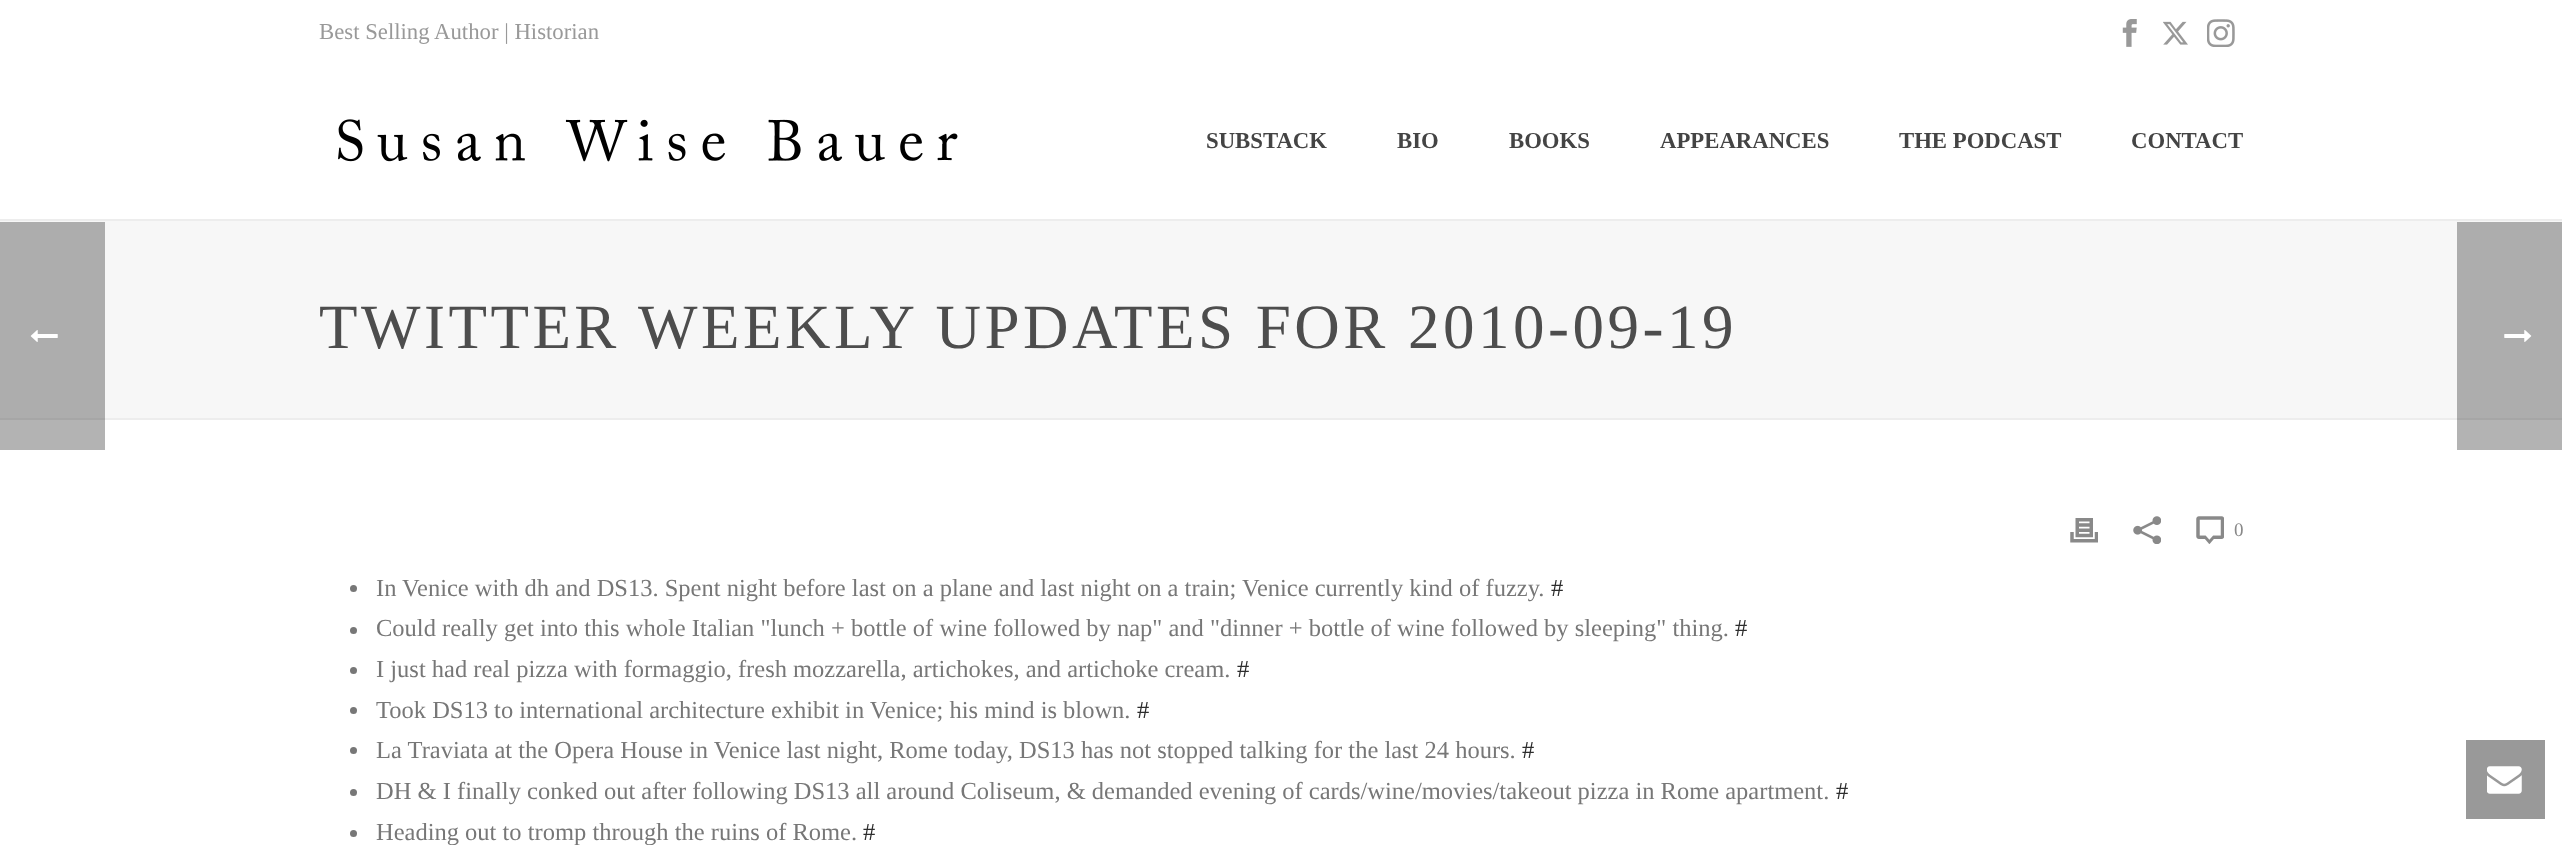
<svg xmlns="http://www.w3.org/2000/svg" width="2562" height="845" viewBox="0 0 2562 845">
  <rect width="100%" height="100%" fill="#fff"/>
  <path d="M2457 420h105v30H2457z" fill="#b3b3b3"/>
  <path d="M0 420h105v30H0z" fill="#b3b3b3"/>
  <path d="M0 221h2562v197H0z" fill="#f7f7f7"/>
  <path d="M0 222h105v196H0z" fill="#adadad"/>
  <image x="30" y="330" width="28" height="12" href="img/1.png"/>
  <path d="M2457 222h105v196H2457z" fill="#adadad"/>
  <path d="M105 418h2352v2H105z" fill="#ededed"/>
  <path d="M2457 418h105v2H2457z" fill="#a6a6a6"/>
  <path d="M0 418h105v2H0z" fill="#a6a6a6"/>
  <image x="2122" y="19" width="15" height="28" href="img/2.png"/>
  <image x="2163" y="21" width="25" height="24" href="img/3.png"/>
  <image x="2207" y="19" width="28" height="28" href="img/4.png"/>
  <path d="M0 219h2562v2H0z" fill="#ededed"/>
  <image x="338" y="119" width="620" height="43" href="img/5.png"/>
  <image x="2070" y="518" width="28" height="25" href="img/6.png"/>
  <image x="2133" y="516" width="28" height="28" href="img/7.png"/>
  <image x="2196" y="516" width="28" height="28" href="img/8.png"/>
  <circle cx="353.5" cy="588.5" r="3.5" fill="#777"/>
  <circle cx="353.5" cy="630.5" r="3.5" fill="#777"/>
  <circle cx="353.5" cy="670.5" r="3.5" fill="#777"/>
  <circle cx="353.5" cy="710.5" r="3.5" fill="#777"/>
  <circle cx="353.5" cy="750.5" r="3.5" fill="#777"/>
  <circle cx="353.5" cy="792.5" r="3.5" fill="#777"/>
  <circle cx="353.5" cy="833.5" r="3.5" fill="#777"/>
  <image x="2504" y="330" width="28" height="12" href="img/9.png"/>
  <path d="M2466 740h79v79H2466z" fill="#999"/>
  <image x="2487" y="766" width="35" height="28" href="img/10.png"/>
  <text x="319" y="39" font-family="Liberation Serif" font-size="22.75" fill="#999">Best Selling Author | Historian</text>
  <g font-family="Liberation Serif" font-size="22.75" font-weight="bold" fill="#444">
    <text x="1206" y="148">SUBSTACK</text>
    <text x="1397" y="148">BIO</text>
    <text x="1509" y="148">BOOKS</text>
    <text x="1660" y="148">APPEARANCES</text>
    <text x="1899" y="148">THE PODCAST</text>
    <text x="2131" y="148">CONTACT</text>
  </g>
  <text x="319" y="348" font-family="Liberation Serif" font-size="63" letter-spacing="3.5" fill="#4d4d4d">TWITTER WEEKLY UPDATES FOR 2010-09-19</text>
  <text x="2234" y="536" font-family="Liberation Serif" font-size="19" fill="#898989">0</text>
  <text x="376" y="596" font-family="Liberation Serif" font-size="24.5" fill="#777">In Venice with dh and DS13. Spent night before last on a plane and last night on a train; Venice currently kind of fuzzy.</text>
  <text x="1551" y="596" font-family="Liberation Serif" font-size="24.5" fill="#2e2e2e">#</text>
  <text x="376" y="636" font-family="Liberation Serif" font-size="24.5" fill="#777">Could really get into this whole Italian "lunch + bottle of wine followed by nap" and "dinner + bottle of wine followed by sleeping" thing.</text>
  <text x="1735" y="636" font-family="Liberation Serif" font-size="24.5" fill="#2e2e2e">#</text>
  <text x="376" y="677" font-family="Liberation Serif" font-size="24.5" fill="#777">I just had real pizza with formaggio, fresh mozzarella, artichokes, and artichoke cream.</text>
  <text x="1237" y="677" font-family="Liberation Serif" font-size="24.5" fill="#2e2e2e">#</text>
  <text x="376" y="718" font-family="Liberation Serif" font-size="24.5" fill="#777">Took DS13 to international architecture exhibit in Venice; his mind is blown.</text>
  <text x="1137" y="718" font-family="Liberation Serif" font-size="24.5" fill="#2e2e2e">#</text>
  <text x="376" y="758" font-family="Liberation Serif" font-size="24.5" fill="#777">La Traviata at the Opera House in Venice last night, Rome today, DS13 has not stopped talking for the last 24 hours.</text>
  <text x="1522" y="758" font-family="Liberation Serif" font-size="24.5" fill="#2e2e2e">#</text>
  <text x="376" y="799" font-family="Liberation Serif" font-size="24.5" fill="#777">DH &amp; I finally conked out after following DS13 all around Coliseum, &amp; demanded evening of cards/wine/movies/takeout pizza in Rome apartment.</text>
  <text x="1836" y="799" font-family="Liberation Serif" font-size="24.5" fill="#2e2e2e">#</text>
  <text x="376" y="840" font-family="Liberation Serif" font-size="24.5" fill="#777">Heading out to tromp through the ruins of Rome.</text>
  <text x="863" y="840" font-family="Liberation Serif" font-size="24.5" fill="#2e2e2e">#</text>
</svg>
